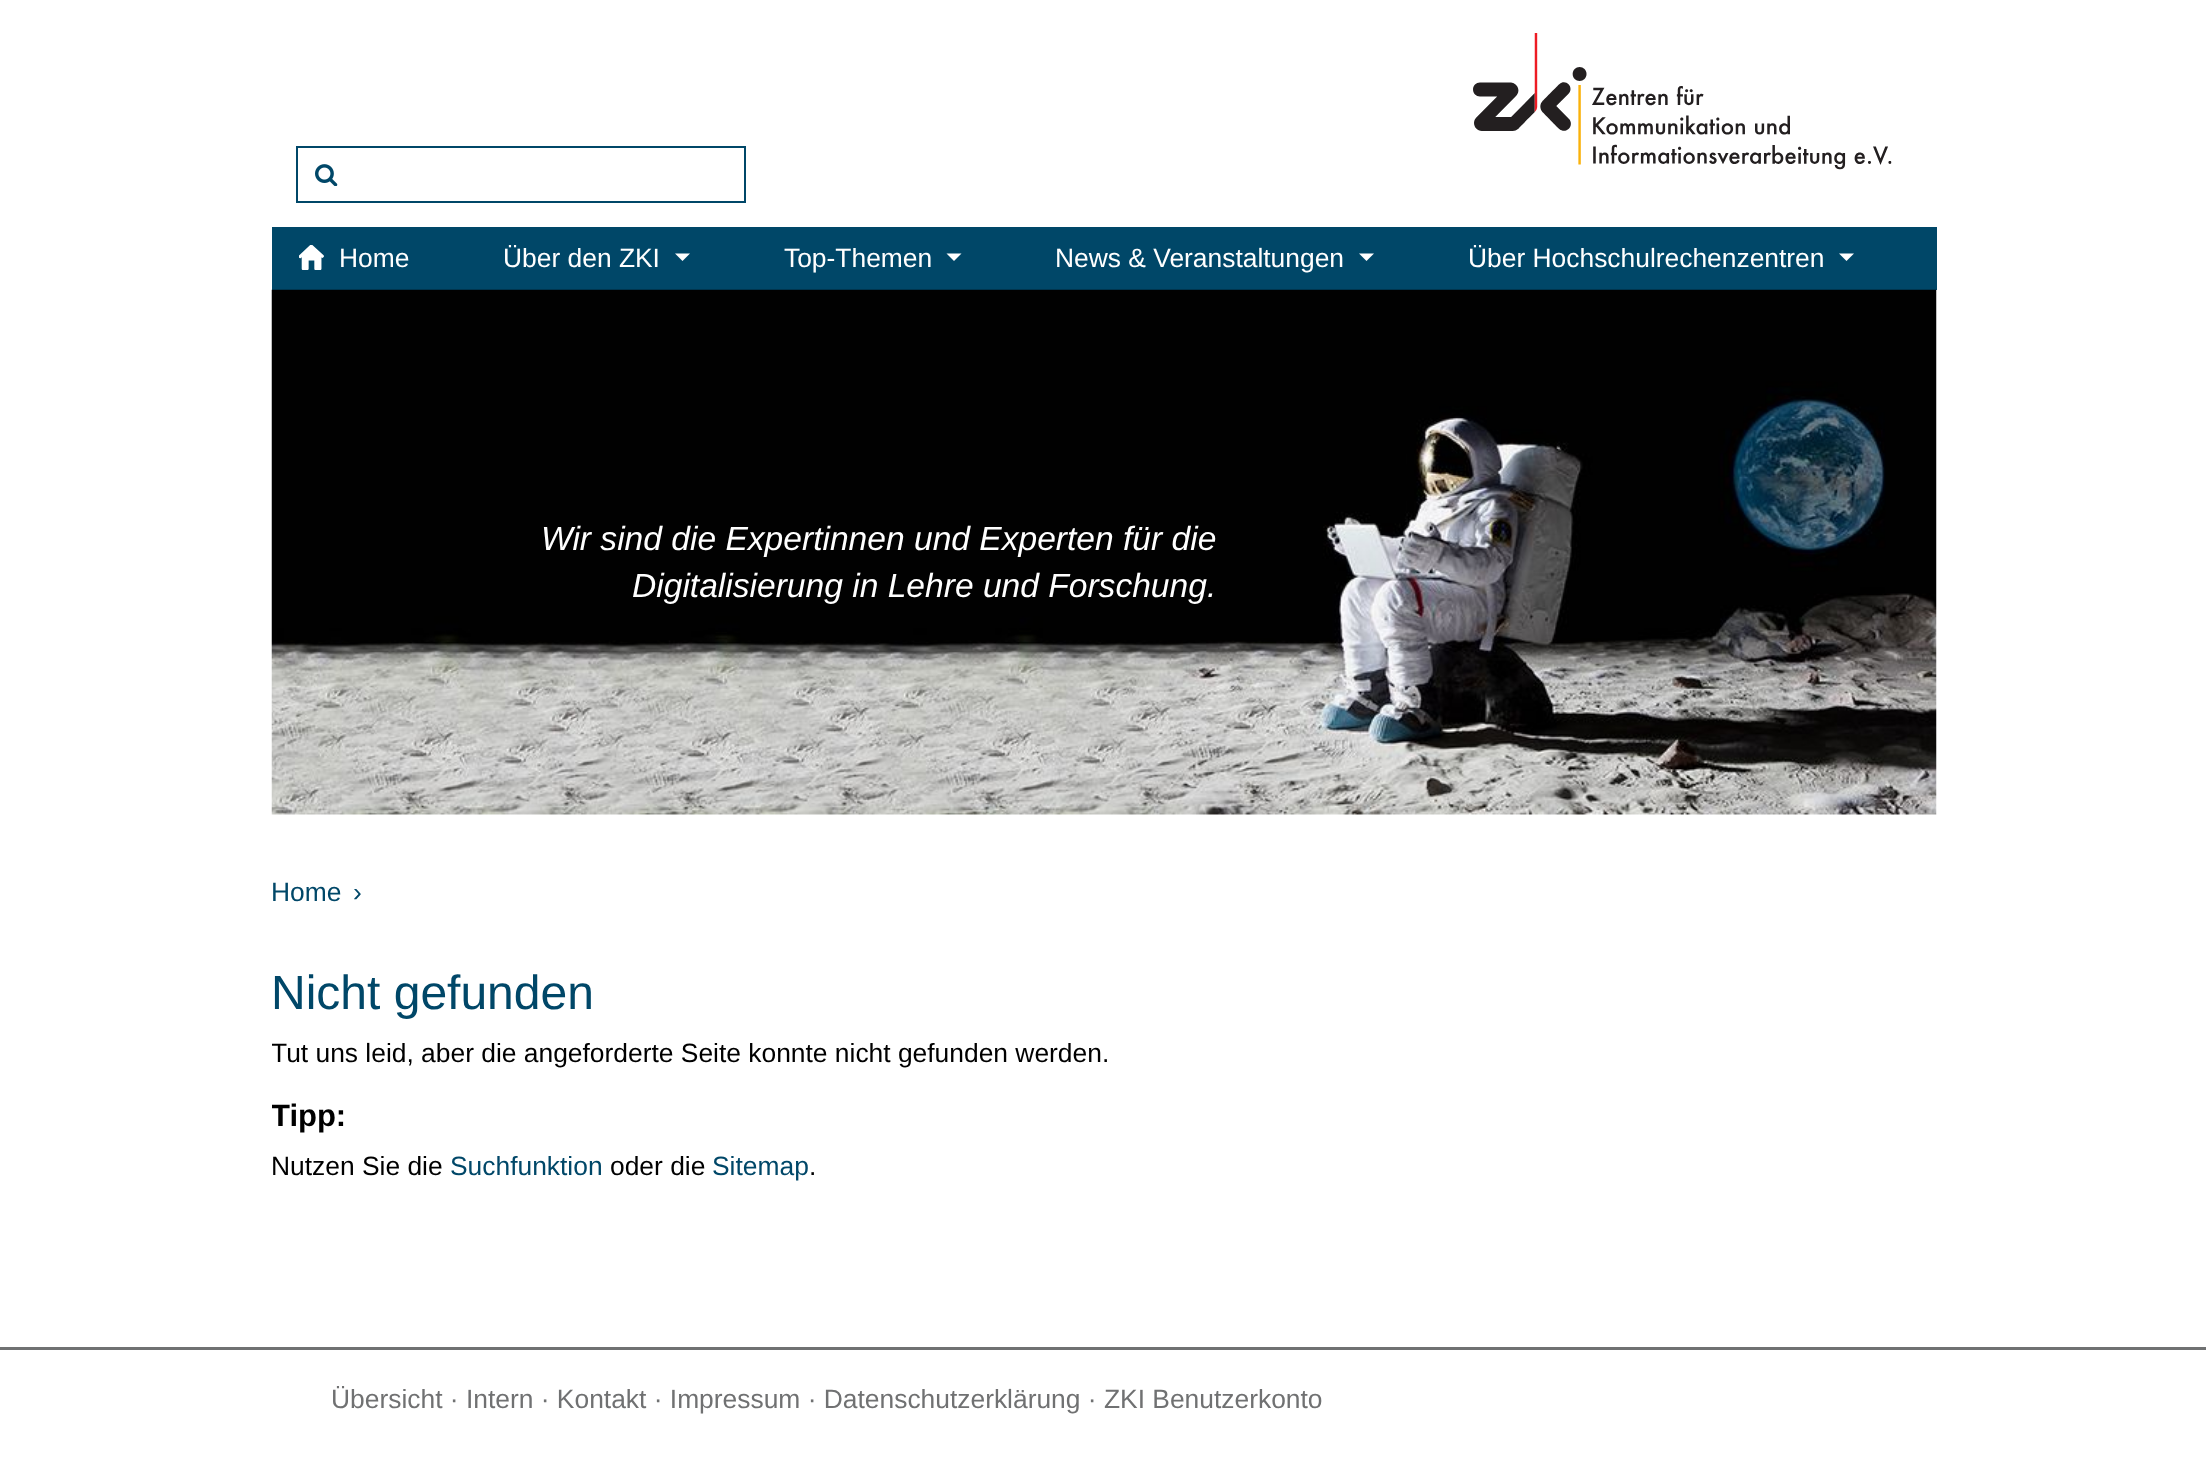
<svg xmlns="http://www.w3.org/2000/svg" width="2206" height="1473" viewBox="0 0 2206 1473">
  <defs>
    <clipPath id="clip1"><path d="M272 1034h1095v177H272z"/></clipPath>
  </defs>
  <rect width="100%" height="100%" fill="#fff"/>
  <path d="M297 147h448v55H297z" fill="none" stroke="#004768" stroke-width="2"/>
  <image x="315" y="164" width="23" height="22" href="img/1.png"/>
  <image x="1473" y="33" width="419" height="137" href="img/2.png"/>
  <path d="M272 227h1665v63H272z" fill="#004768"/>
  <image x="299" y="245" width="25" height="25" href="img/3.png"/>
  <path d="M675 253.5H690L682.5 261Z" fill="#fff"/>
  <path d="M946.5 253.5H961.5L954 261Z" fill="#fff"/>
  <path d="M1359 253.5H1374L1366.5 261Z" fill="#fff"/>
  <path d="M1839 253.5H1854L1846.5 261Z" fill="#fff"/>
  <image x="271" y="289" width="1666" height="526" href="img/4.png"/>
  <path d="M0 1347h2206v3H0z" fill="#707172"/>
  <g font-family="Liberation Sans" font-size="26.4" fill="#fff">
    <text x="339" y="267">Home</text>
    <text x="503" y="267">Über den ZKI</text>
    <text x="784" y="267">Top-Themen</text>
    <text x="1055" y="267">News &amp; Veranstaltungen</text>
    <text x="1468" y="267">Über Hochschulrechenzentren</text>
  </g>
  <g font-family="Liberation Sans" font-size="33.6" font-style="italic" fill="#fff">
    <text x="541" y="550">Wir sind die Expertinnen und Experten für die</text>
    <text x="632" y="597">Digitalisierung in Lehre und Forschung.</text>
  </g>
  <g font-family="Liberation Sans" font-size="26.4" fill="#004768">
    <text x="271" y="901">Home</text>
    <text x="353" y="901">›</text>
  </g>
  <text x="271" y="1009" font-family="Liberation Sans" font-size="48" fill="#004768">Nicht gefunden</text>
  <g clip-path="url(#clip1)">
    <text x="271" y="1062" font-family="Liberation Sans" font-size="26.4" fill="#000">Tut uns leid, aber die angeforderte Seite konnte nicht gefunden werden.</text>
    <text x="271" y="1126" font-family="Liberation Sans" font-size="31" font-weight="bold" fill="#000">Tipp:</text>
  </g>
  <text x="271" y="1175" font-family="Liberation Sans" font-size="26.4" fill="#000">Nutzen Sie die</text>
  <text x="450" y="1175" font-family="Liberation Sans" font-size="26.4" fill="#004768">Suchfunktion</text>
  <text x="610" y="1175" font-family="Liberation Sans" font-size="26.4" fill="#000">oder die</text>
  <text x="712" y="1175" font-family="Liberation Sans" font-size="26.4" fill="#004768">Sitemap</text>
  <text x="809" y="1175" font-family="Liberation Sans" font-size="26.4" fill="#000">.</text>
  <text x="331" y="1408" font-family="Liberation Sans" font-size="26.4" fill="#707172">Übersicht · Intern · Kontakt · Impressum · Datenschutzerklärung · ZKI Benutzerkonto</text>
</svg>
